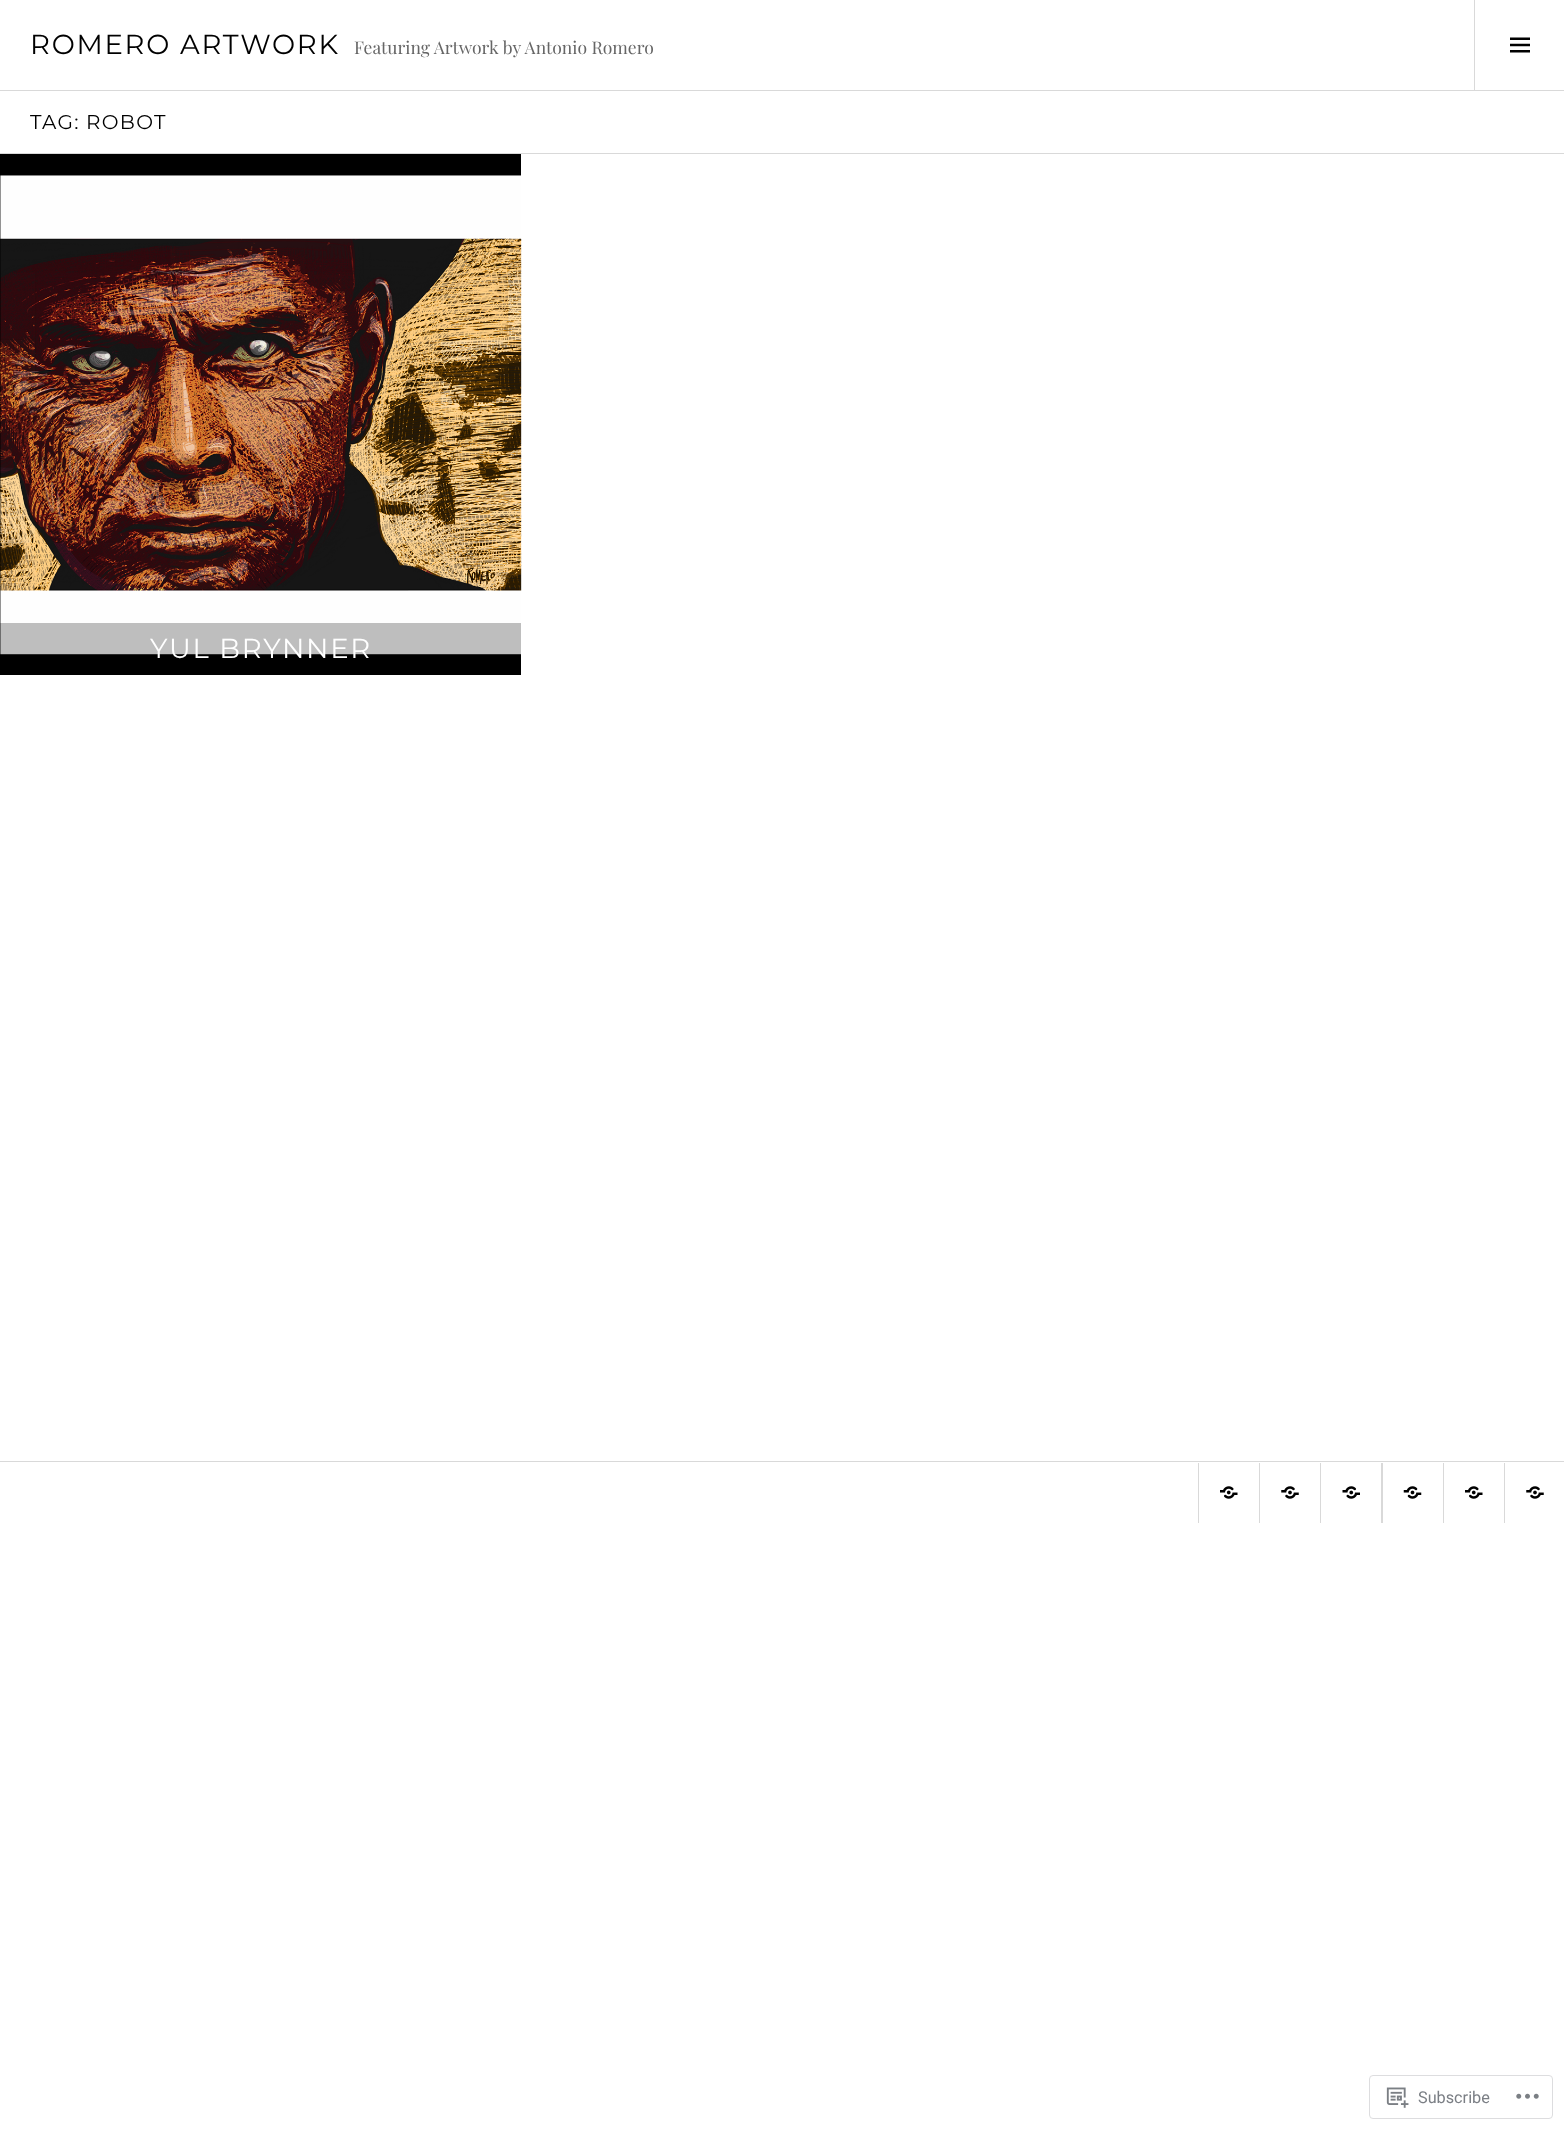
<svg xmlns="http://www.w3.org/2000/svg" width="1564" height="2131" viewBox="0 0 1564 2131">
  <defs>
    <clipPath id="clip1"><path d="M0 1463h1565v60H0z"/></clipPath>
  </defs>
  <rect width="100%" height="100%" fill="#fff"/>
  <path d="M0 90h1564v1H0z" fill="#d9d9d9"/>
  <path d="M1474 0h1v90H1474z" fill="#d9d9d9"/>
  <image x="1510" y="37" width="20" height="16" href="img/1.png"/>
  <path d="M0 153h1564v1H0z" fill="#d9d9d9"/>
  <path d="M0 154h521v521H0z" fill="#000"/>
  <image x="0" y="175" width="522" height="480" href="img/2.png"/>
  <path d="M0 623h521v32H0z" fill="#00000040"/>
  <path d="M0 1461h1564v1H0z" fill="#d9d9d9"/>
  <g clip-path="url(#clip1)">
    <path d="M1198.5 1461.5h61v62H1198.5z" fill="none" stroke="#d9d9d9"/>
  </g>
  <image x="1220" y="1486" width="18" height="13" href="img/3.png"/>
  <g clip-path="url(#clip1)">
    <path d="M1259.5 1461.5h61v62H1259.5z" fill="none" stroke="#d9d9d9"/>
  </g>
  <image x="1281" y="1486" width="18" height="13" href="img/4.png"/>
  <g clip-path="url(#clip1)">
    <path d="M1320.5 1461.5h62v62H1320.5z" fill="none" stroke="#d9d9d9"/>
  </g>
  <image x="1342" y="1486" width="18" height="13" href="img/5.png"/>
  <g clip-path="url(#clip1)">
    <path d="M1381.5 1461.5h62v62H1381.5z" fill="none" stroke="#d9d9d9"/>
  </g>
  <image x="1403" y="1486" width="19" height="13" href="img/6.png"/>
  <g clip-path="url(#clip1)">
    <path d="M1443.5 1461.5h61v62H1443.5z" fill="none" stroke="#d9d9d9"/>
  </g>
  <image x="1465" y="1486" width="18" height="13" href="img/3.png"/>
  <image x="1526" y="1486" width="18" height="13" href="img/4.png"/>
  <rect x="1369.5" y="2075.5" width="183" height="43" rx="3.5" fill="none" stroke="#dddddf"/>
  <image x="1386" y="2087" width="23" height="21" href="img/7.png"/>
  <image x="1516" y="2093" width="23" height="6" href="img/8.png"/>
  <text x="30" y="54" font-family="Montserrat" font-size="27.5" letter-spacing="1.75" fill="#000">ROMERO ARTWORK</text>
  <text x="354" y="54" font-family="Playfair Display" font-size="17.5" fill="#666">Featuring Artwork by Antonio Romero</text>
  <text x="30" y="129" font-family="Montserrat" font-size="20" letter-spacing="1.25" fill="#000">TAG: ROBOT</text>
  <text x="150" y="658" font-family="Montserrat" font-size="27.5" letter-spacing="1.75" fill="#fff">YUL BRYNNER</text>
  <text x="1418" y="2103" font-family="Roboto" font-size="16.25" fill="#7b7f85">Subscribe</text>
</svg>
